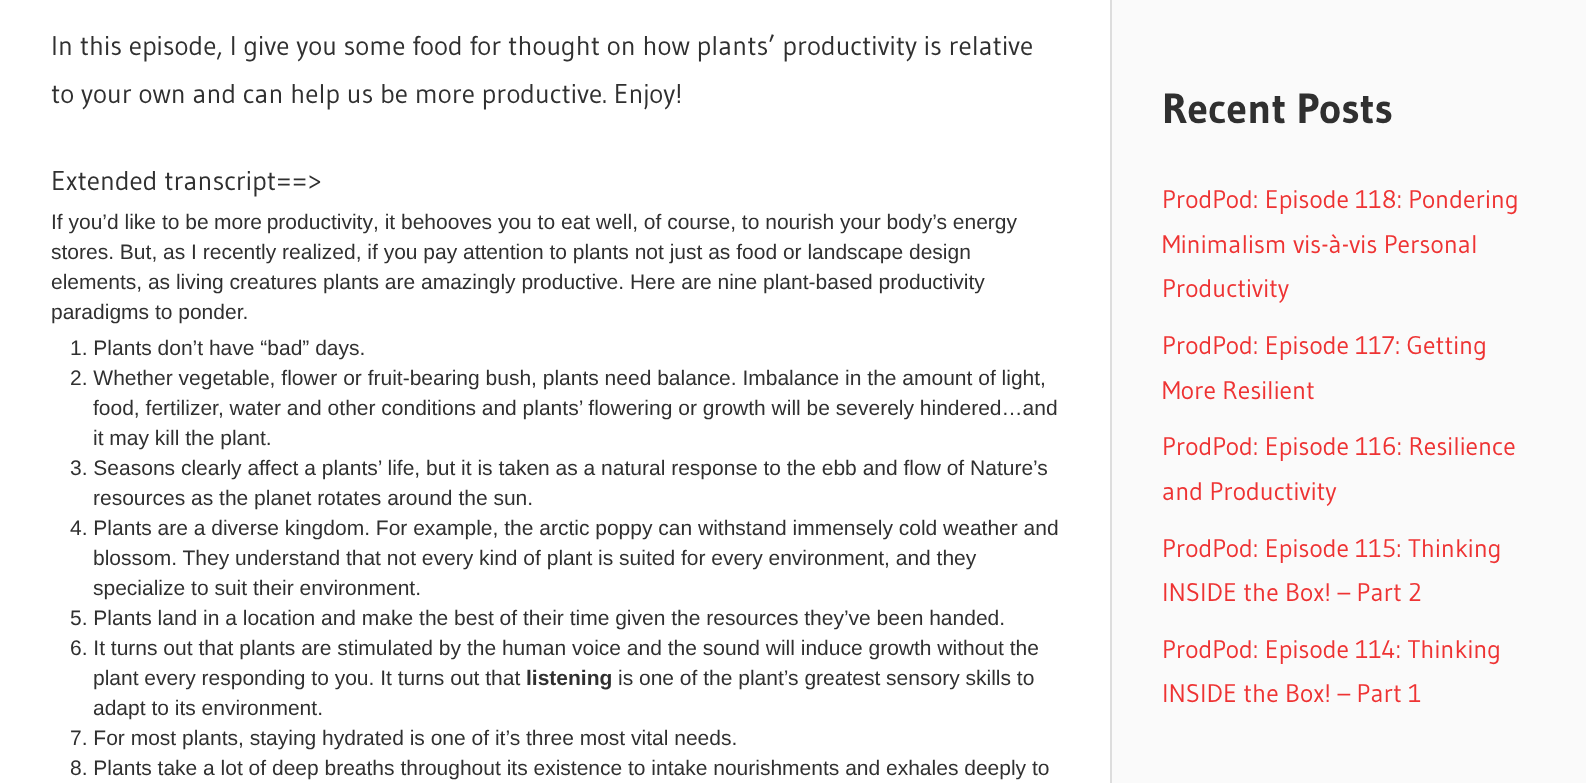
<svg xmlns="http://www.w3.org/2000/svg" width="1587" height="783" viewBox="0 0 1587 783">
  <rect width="100%" height="100%" fill="#fff"/>
  <path d="M1112 0h474v783H1112z" fill="#fafafa"/>
  <path d="M1110 0h2v783H1110z" fill="#ddd"/>
  <g font-family="Gudea" font-size="27" fill="#303030">
    <text x="51" y="55">In this episode, I give you some food for thought on how plants’ productivity is relative</text>
    <text x="51" y="103">to your own and can help us be more productive. Enjoy!</text>
    <text x="51" y="190">Extended transcript==&gt;</text>
  </g>
  <g font-family="Liberation Sans" font-size="21" fill="#303030">
    <text x="51" y="229">If you’d like to be</text>
    <text x="214" y="229" word-spacing="-1">more productivity</text>
    <text x="373" y="229">, it behooves you to eat well, of course, to nourish your body’s energy</text>
    <text x="51" y="259">stores. But, as I recently realized, if you pay attention to plants not just as food or landscape design</text>
    <text x="51" y="289">elements, as living creatures plants are amazingly productive. Here are nine plant-based productivity</text>
    <text x="51" y="319">paradigms to ponder.</text>
    <text x="70" y="355">1. Plants don’t have “bad” days.</text>
    <text x="70" y="385">2. Whether vegetable, flower or fruit-bearing bush, plants need balance. Imbalance in the amount of light,</text>
    <text x="93" y="415">food, fertilizer, water and other conditions and plants’ flowering or growth will be severely hindered…and</text>
    <text x="93" y="445">it may kill the plant.</text>
    <text x="70" y="475">3. Seasons clearly affect a plants’ life, but it is taken as a natural response to the ebb and flow of Nature’s</text>
    <text x="93" y="505">resources as the planet rotates around the sun.</text>
    <text x="70" y="535">4. Plants are a diverse kingdom. For example, the arctic poppy can withstand immensely cold weather and</text>
    <text x="93" y="565">blossom. They understand that not every kind of plant is suited for every environment, and they</text>
    <text x="93" y="595">specialize to suit their environment.</text>
    <text x="70" y="625">5. Plants land in a location and make the best of their time given the resources they’ve been handed.</text>
    <text x="70" y="655">6. It turns out that plants are stimulated by the human voice and the sound will induce growth without the</text>
    <text x="93" y="685">plant every responding to you. It turns out that</text>
  </g>
  <text x="526" y="685" font-family="Liberation Sans" font-size="21" font-weight="bold" fill="#303030">listening</text>
  <g font-family="Liberation Sans" font-size="21" fill="#303030">
    <text x="618" y="685">is one of the plant’s greatest sensory skills to</text>
    <text x="93" y="715">adapt to its environment.</text>
    <text x="70" y="745">7. For most plants, staying hydrated is one of it’s three most vital needs.</text>
    <text x="70" y="775">8. Plants take a lot of deep breaths throughout its existence to intake nourishments and exhales deeply to</text>
  </g>
  <text x="1162" y="123" font-family="Gudea" font-size="42" font-weight="bold" fill="#303030">Recent Posts</text>
  <g font-family="Gudea" font-size="25.5" fill="#e33">
    <text x="1162" y="208">ProdPod: Episode 118: Pondering</text>
    <text x="1162" y="253">Minimalism vis-à-vis Personal</text>
    <text x="1162" y="297">Productivity</text>
    <text x="1162" y="354">ProdPod: Episode 117: Getting</text>
    <text x="1162" y="399">More Resilient</text>
    <text x="1162" y="455">ProdPod: Episode 116: Resilience</text>
    <text x="1162" y="500">and Productivity</text>
    <text x="1162" y="557">ProdPod: Episode 115: Thinking</text>
    <text x="1162" y="601">INSIDE the Box! – Part 2</text>
    <text x="1162" y="658">ProdPod: Episode 114: Thinking</text>
    <text x="1162" y="702">INSIDE the Box! – Part 1</text>
  </g>
</svg>
